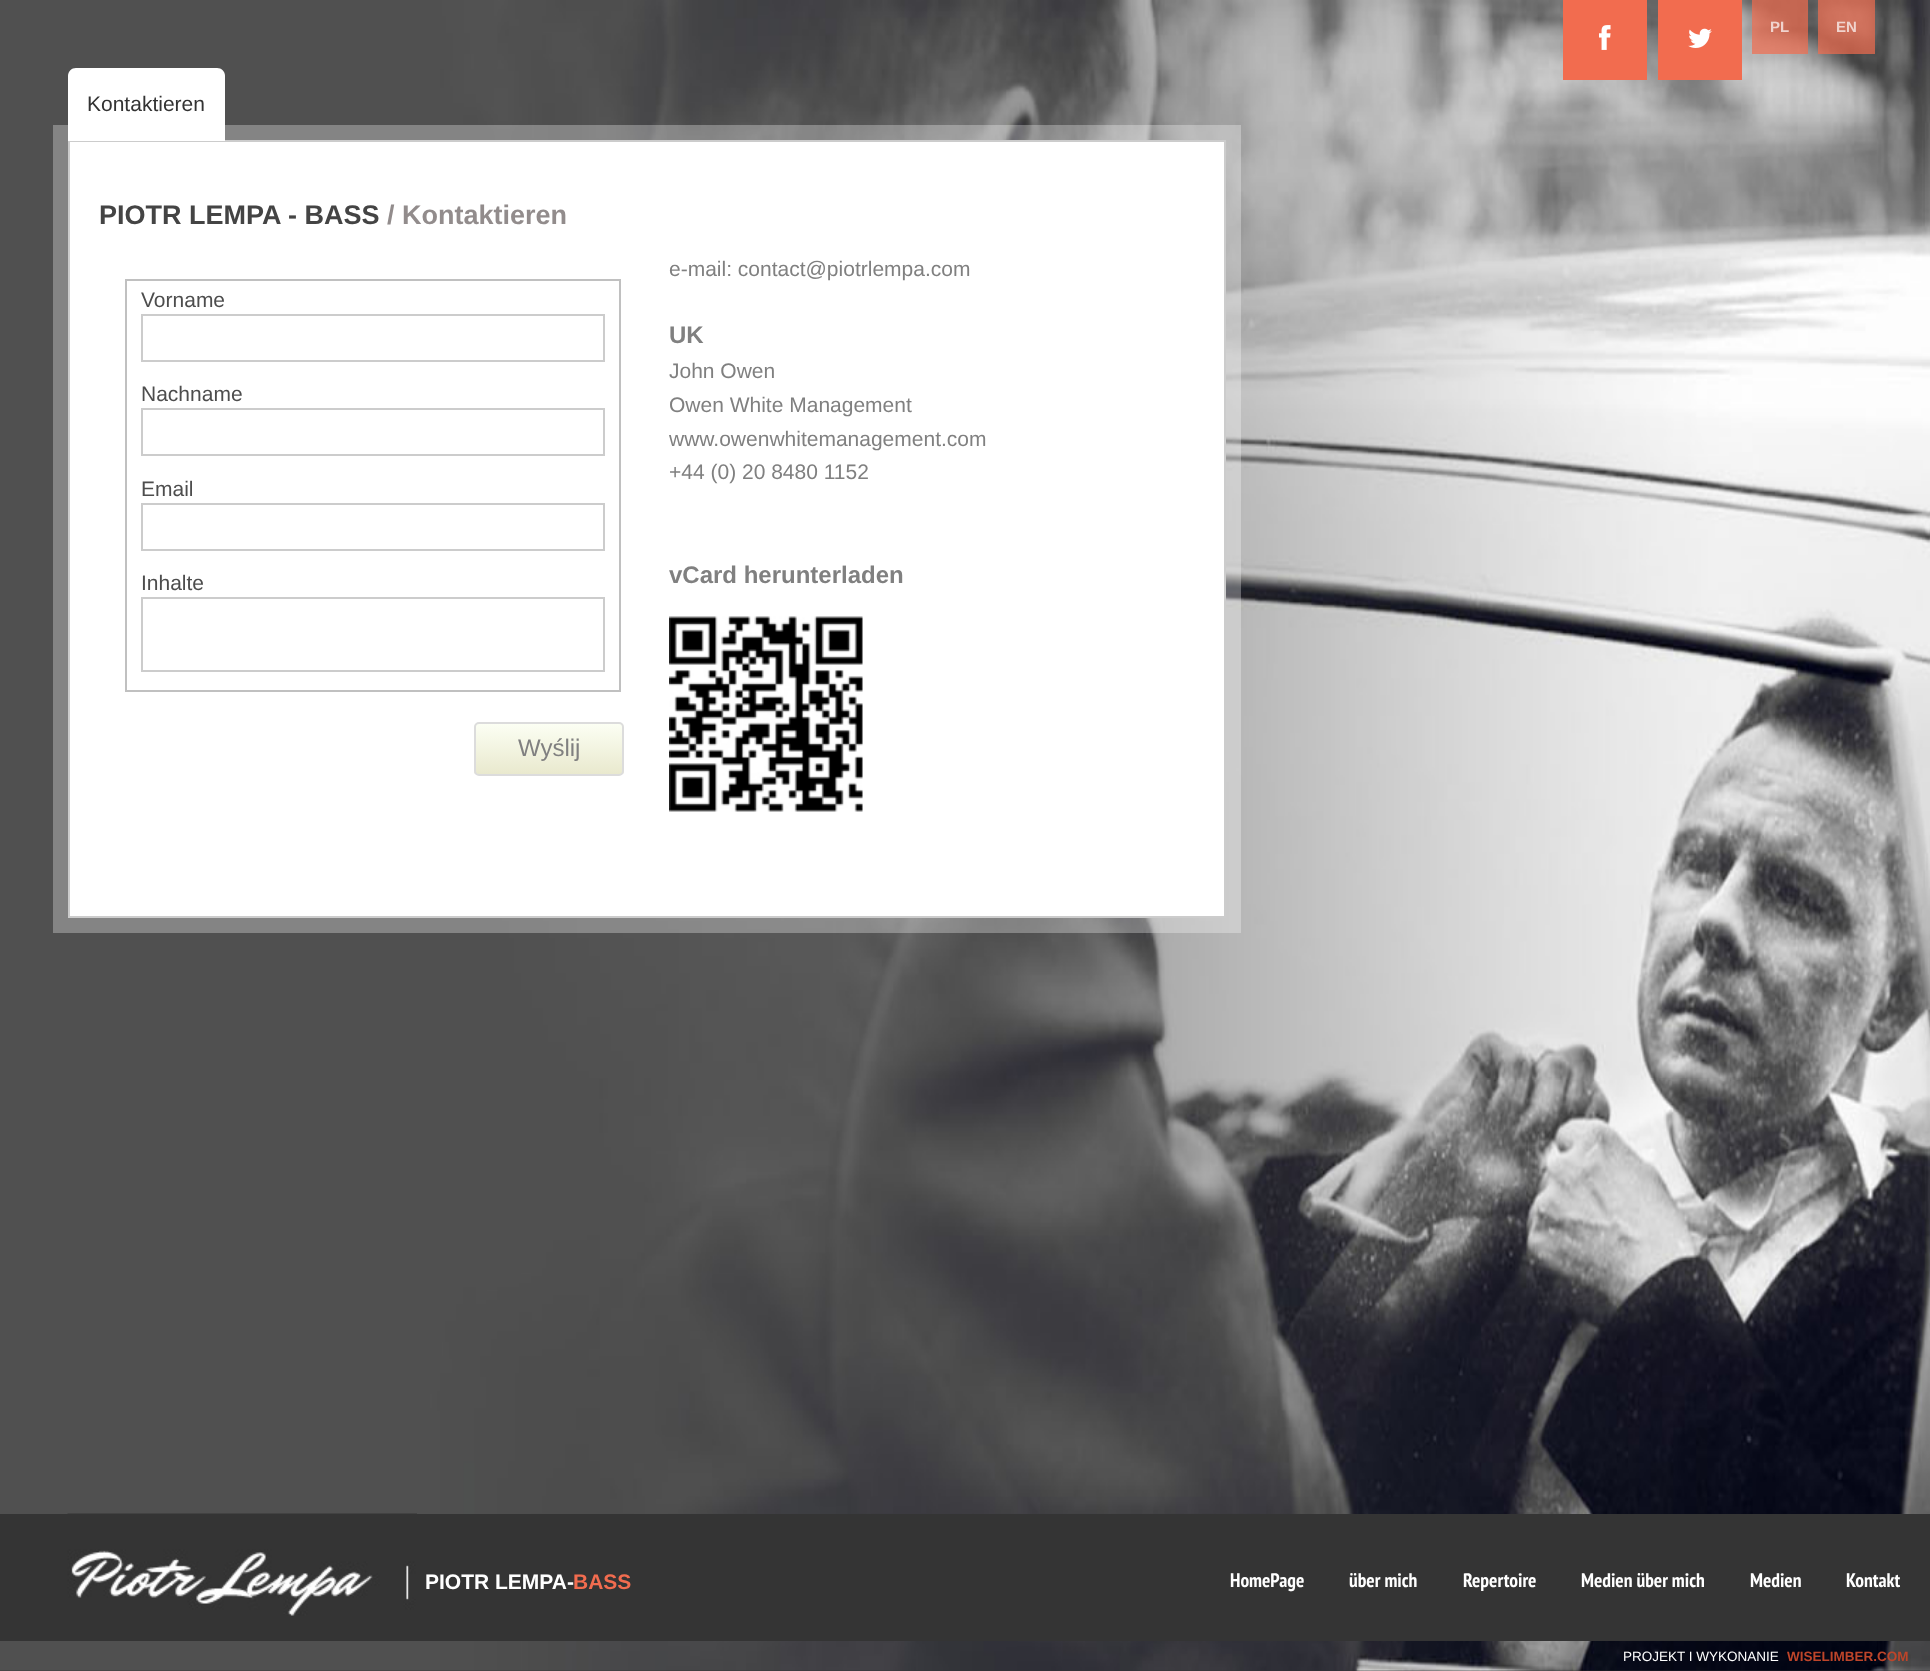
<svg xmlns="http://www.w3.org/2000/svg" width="1930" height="1671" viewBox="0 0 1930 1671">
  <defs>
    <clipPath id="clip1"><rect x="474" y="722" width="150" height="54" rx="5"/></clipPath>
    <linearGradient id="g1" gradientUnits="userSpaceOnUse" x1="549" y1="723" x2="549" y2="774"><stop offset="0" stop-color="#fcfff4"/><stop offset="1" stop-color="#e9e9ce"/></linearGradient>
  </defs>
  <rect width="100%" height="100%" fill="#343434"/>
  <image x="0" y="0" width="1930" height="1671" href="img/1.png"/>
  <path d="M1563 0h84v80H1563z" fill="#f26c4f"/>
  <image x="1599" y="25" width="12" height="25" href="img/2.png"/>
  <path d="M1658 0h84v80H1658z" fill="#f26c4f"/>
  <image x="1688" y="28" width="24" height="20" href="img/3.png"/>
  <path d="M1752 0h56v54H1752z" fill="#f26c4fb3"/>
  <path d="M1818 0h57v54H1818z" fill="#f26c4fb3"/>
  <path d="M60.5 132.5h1173v793H60.5z" fill="none" stroke="#ffffff4d" stroke-width="15"/>
  <path d="M69 141h1156v776H69z" fill="#fff" stroke="#ccc" stroke-width="2"/>
  <path d="M76 68H217C221.5 68 225 71.5 225 76V141H68V76C68 71.5 71.5 68 76 68Z" fill="#fff"/>
  <path d="M126 280h494v411H126z" fill="none" stroke="#c0c0c0" stroke-width="2"/>
  <path d="M142 315h462v46H142z" fill="none" stroke="#ccc" stroke-width="2"/>
  <path d="M142 409h462v46H142z" fill="none" stroke="#ccc" stroke-width="2"/>
  <path d="M142 504h462v46H142z" fill="none" stroke="#ccc" stroke-width="2"/>
  <path d="M142 598h462v73H142z" fill="none" stroke="#ccc" stroke-width="2"/>
  <g clip-path="url(#clip1)">
    <path d="M474 723h150v51H474z" fill="url(#g1)"/>
  </g>
  <rect x="475" y="723" width="148" height="52" rx="4" fill="none" stroke="#dcdcdc" stroke-width="2"/>
  <image x="669" y="616" width="194" height="196" href="img/4.png"/>
  <path d="M0 1514h1930v127H0z" fill="#343434"/>
  <image x="67" y="1513" width="350" height="103" href="img/5.png"/>
  <g font-family="Liberation Sans" font-size="15" font-weight="bold" fill="#f0d3cd">
    <text x="1770" y="32">PL</text>
    <text x="1836" y="32">EN</text>
  </g>
  <text x="87" y="111" font-family="Liberation Sans" font-size="21" fill="#333">Kontaktieren</text>
  <text x="99" y="224" font-family="Liberation Sans" font-size="27" font-weight="bold" fill="#444">PIOTR LEMPA - BASS</text>
  <text x="387" y="224" font-family="Liberation Sans" font-size="27" font-weight="bold" fill="#928c8c">/ Kontaktieren</text>
  <g font-family="Liberation Sans" font-size="21" fill="#4d4d4d">
    <text x="141" y="307">Vorname</text>
    <text x="141" y="401">Nachname</text>
    <text x="141" y="496">Email</text>
    <text x="141" y="590">Inhalte</text>
  </g>
  <text x="518" y="756" font-family="Liberation Sans" font-size="24" fill="#808080">Wyślij</text>
  <text x="669" y="276" font-family="Liberation Sans" font-size="21" fill="#808080">e-mail: contact@piotrlempa.com</text>
  <text x="669" y="343" font-family="Liberation Sans" font-size="24" font-weight="bold" fill="#808080">UK</text>
  <g font-family="Liberation Sans" font-size="21" fill="#808080">
    <text x="669" y="378">John Owen</text>
    <text x="669" y="412">Owen White Management</text>
    <text x="669" y="446">www.owenwhitemanagement.com</text>
    <text x="669" y="479">+44 (0) 20 8480 1152</text>
  </g>
  <text x="669" y="583" font-family="Liberation Sans" font-size="24" font-weight="bold" fill="#808080">vCard herunterladen</text>
  <text x="425" y="1589" font-family="Liberation Sans" font-size="21" font-weight="bold" fill="#fff">PIOTR LEMPA-</text>
  <text x="573" y="1589" font-family="Liberation Sans" font-size="21" font-weight="bold" fill="#f26c4f">BASS</text>
  <g font-family="PT Sans Narrow" font-size="19.5" font-weight="bold" fill="#fff">
    <text x="1230" y="1587">HomePage</text>
    <text x="1349" y="1587">über mich</text>
    <text x="1463" y="1587">Repertoire</text>
    <text x="1581" y="1587">Medien über mich</text>
    <text x="1750" y="1587">Medien</text>
    <text x="1846" y="1587">Kontakt</text>
  </g>
  <text x="1623" y="1661" font-family="Liberation Sans" font-size="13.5" fill="#fff">PROJEKT I WYKONANIE</text>
  <text x="1787" y="1661" font-family="Liberation Sans" font-size="13.5" font-weight="bold" fill="#be452a">WISELIMBER.COM</text>
</svg>
